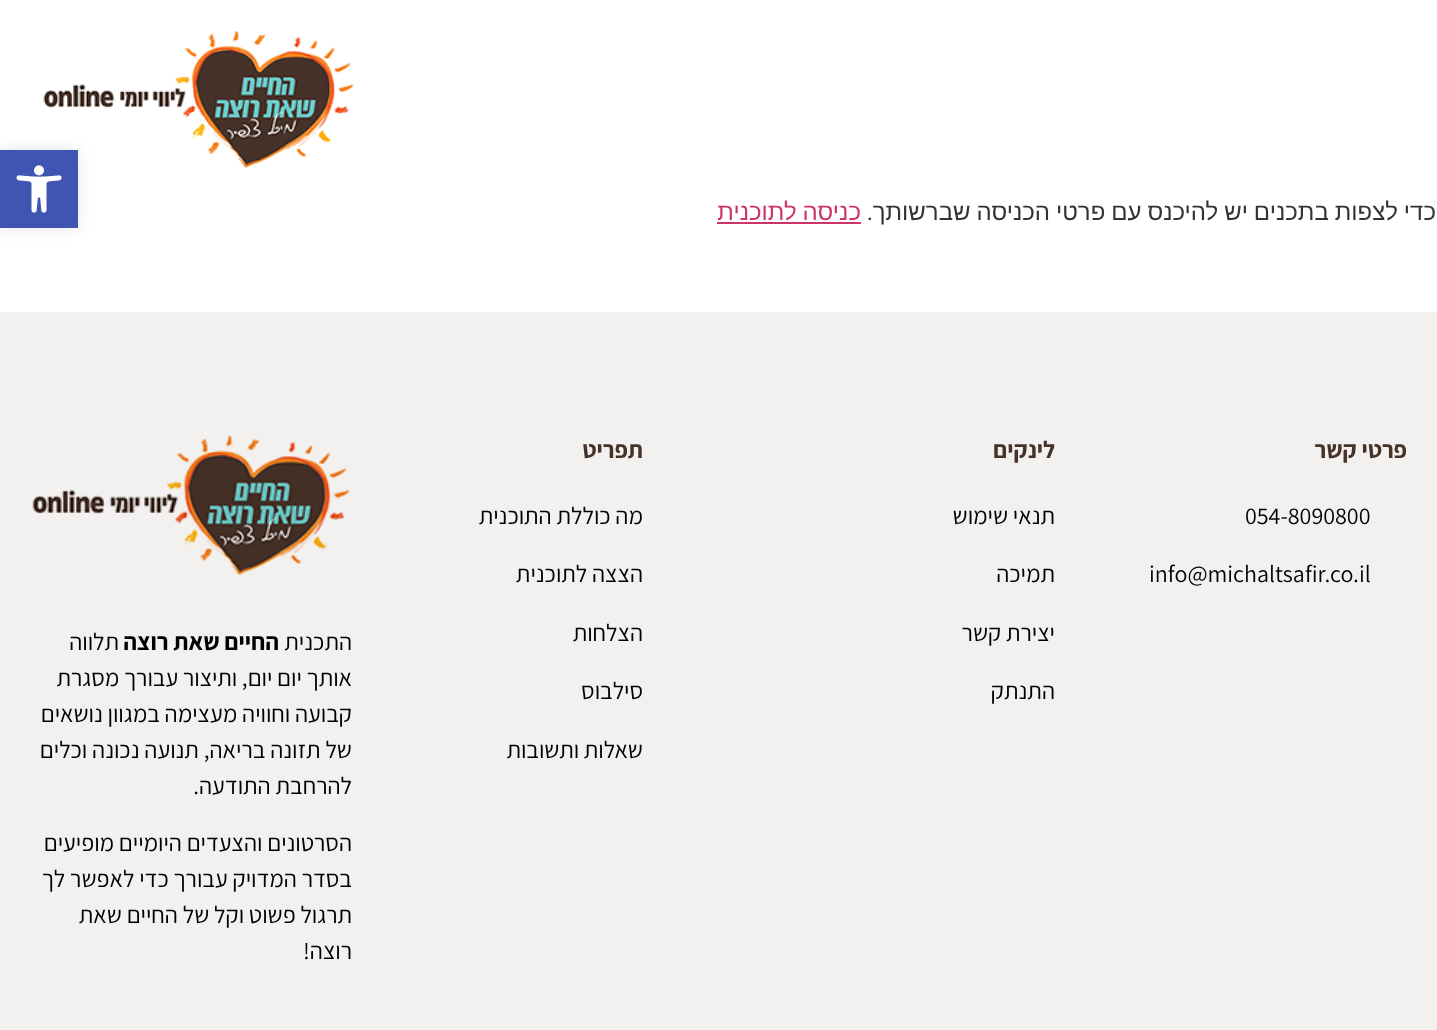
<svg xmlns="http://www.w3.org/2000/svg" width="1437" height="1030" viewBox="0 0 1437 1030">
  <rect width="100%" height="100%" fill="#fff"/>
  <image x="43" y="30" width="312" height="138" href="img/1.png"/>
  <path d="M717 222h144v2H717z" fill="#c36"/>
  <path d="M0 150h78v78H0z" fill="#0000001a" filter="blur(7.5px)"/>
  <path d="M0 150h78v78H0z" fill="#4054b2"/>
  <image x="16" y="165" width="46" height="48" href="img/2.png"/>
  <path d="M0 312h1437v718H0z" fill="#f3f1ef"/>
  <image x="32" y="434" width="318" height="141" href="img/3.png"/>
  <text x="1436" y="220" word-spacing="-0.75" font-family="Liberation Sans" font-size="24" direction="rtl" fill="#333">כדי לצפות בתכנים יש להיכנס עם פרטי הכניסה שברשותך</text>
  <text x="873" y="220" font-family="Roboto" font-size="24" direction="rtl" fill="#333">.</text>
  <text x="861" y="220" word-spacing="-0.75" font-family="Liberation Sans" font-size="24" direction="rtl" fill="#c36">כניסה לתוכנית</text>
  <text x="1407" y="458" font-family="Assistant" font-size="24" font-weight="bold" direction="rtl" fill="#463229">פרטי קשר</text>
  <g font-family="Assistant" font-size="24" fill="#000">
    <text x="1245" y="524">054-8090800</text>
    <text x="1149" y="582">info@michaltsafir.co.il</text>
  </g>
  <text x="1055" y="458" font-family="Assistant" font-size="24" font-weight="bold" direction="rtl" fill="#463229">לינקים</text>
  <g font-family="Assistant" font-size="24" direction="rtl" fill="#000">
    <text x="1055" y="524">תנאי שימוש</text>
    <text x="1055" y="582">תמיכה</text>
    <text x="1055" y="641">יצירת קשר</text>
    <text x="1055" y="699">התנתק</text>
  </g>
  <text x="643" y="458" font-family="Assistant" font-size="24" font-weight="bold" direction="rtl" fill="#463229">תפריט</text>
  <g font-family="Assistant" font-size="24" direction="rtl" fill="#000">
    <text x="643" y="524">מה כוללת התוכנית</text>
    <text x="643" y="582">הצצה לתוכנית</text>
    <text x="643" y="641">הצלחות</text>
    <text x="643" y="699">סילבוס</text>
    <text x="643" y="758">שאלות ותשובות</text>
    <text x="352" y="650">התכנית</text>
  </g>
  <text x="279" y="650" font-family="Assistant" font-size="24" font-weight="bold" direction="rtl" fill="#000">החיים שאת רוצה</text>
  <g font-family="Assistant" font-size="24" direction="rtl" fill="#000">
    <text x="119" y="650">תלווה</text>
    <text x="352" y="686">אותך יום יום, ותיצור עבורך מסגרת</text>
    <text x="352" y="722">קבועה וחוויה מעצימה במגוון נושאים</text>
    <text x="352" y="758">של תזונה בריאה, תנועה נכונה וכלים</text>
    <text x="352" y="794">להרחבת התודעה.</text>
    <text x="352" y="851">הסרטונים והצעדים היומיים מופיעים</text>
    <text x="352" y="887">בסדר המדויק עבורך כדי לאפשר לך</text>
    <text x="352" y="923">תרגול פשוט וקל של החיים שאת</text>
    <text x="352" y="959">רוצה!</text>
  </g>
</svg>
